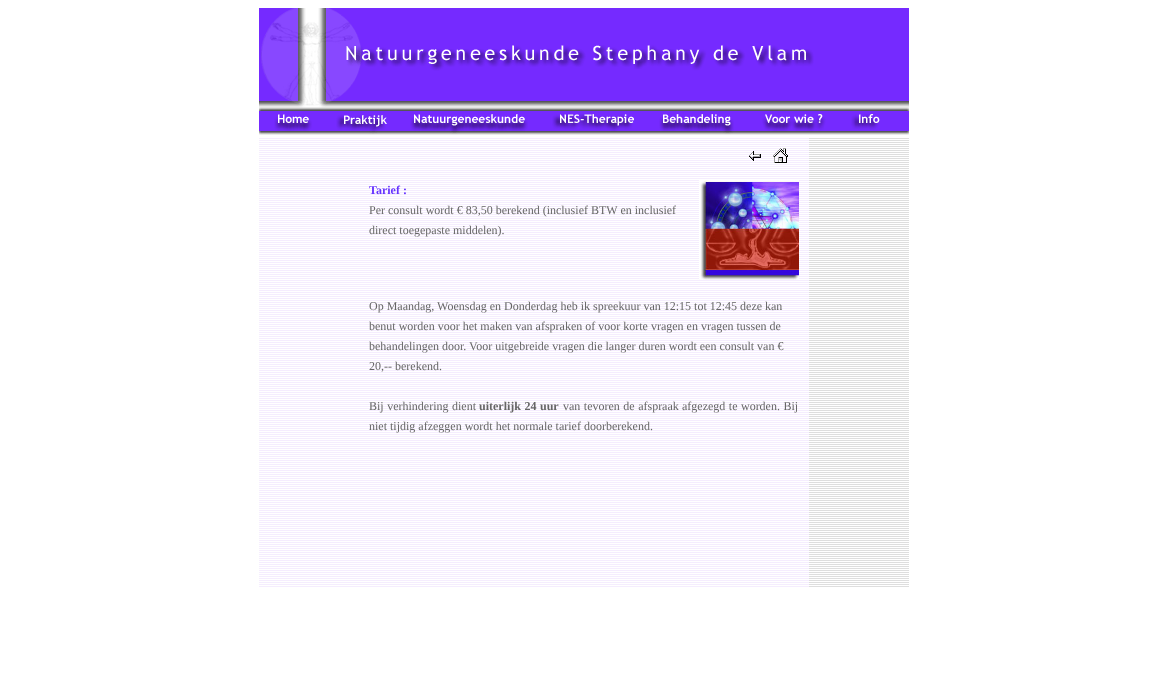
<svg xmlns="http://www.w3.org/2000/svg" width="1167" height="682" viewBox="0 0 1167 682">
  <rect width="100%" height="100%" fill="#fff"/>
  <image x="259" y="8" width="650" height="127" href="img/1.png"/>
  <image x="259" y="138" width="550" height="449" href="img/2.png"/>
  <image x="749" y="151" width="12" height="10" href="img/3.png"/>
  <image x="773" y="148" width="15" height="15" href="img/4.png"/>
  <image x="699" y="180" width="100" height="100" href="img/5.png"/>
  <image x="809" y="138" width="100" height="449" href="img/6.png"/>
  <text x="369" y="194" font-family="Liberation Serif" font-size="12" font-weight="bold" fill="#63f">Tarief :</text>
  <g font-family="Liberation Serif" font-size="12" fill="#666">
    <text x="369" y="214">Per consult wordt € 83,50 berekend (inclusief BTW en inclusief</text>
    <text x="369" y="234">direct toegepaste middelen).</text>
    <text x="369" y="310">Op Maandag, Woensdag en Donderdag heb ik spreekuur van 12:15 tot 12:45 deze kan</text>
    <text x="369" y="330">benut worden voor het maken van afspraken of voor korte vragen en vragen tussen de</text>
    <text x="369" y="350">behandelingen door. Voor uitgebreide vragen die langer duren wordt een consult van €</text>
    <text x="369" y="370">20,-- berekend.</text>
    <text x="369" y="410" word-spacing="0.5">Bij verhindering dient</text>
  </g>
  <text x="479" y="410" word-spacing="0.5" font-family="Liberation Serif" font-size="12" font-weight="bold" fill="#666">uiterlijk 24 uur</text>
  <g font-family="Liberation Serif" font-size="12" fill="#666">
    <text x="563" y="410" word-spacing="0.5">van tevoren de afspraak</text>
    <text x="682" y="410" word-spacing="0.5">afgezegd te worden. Bij</text>
    <text x="369" y="430">niet tijdig afzeggen wordt het normale tarief doorberekend.</text>
  </g>
</svg>
